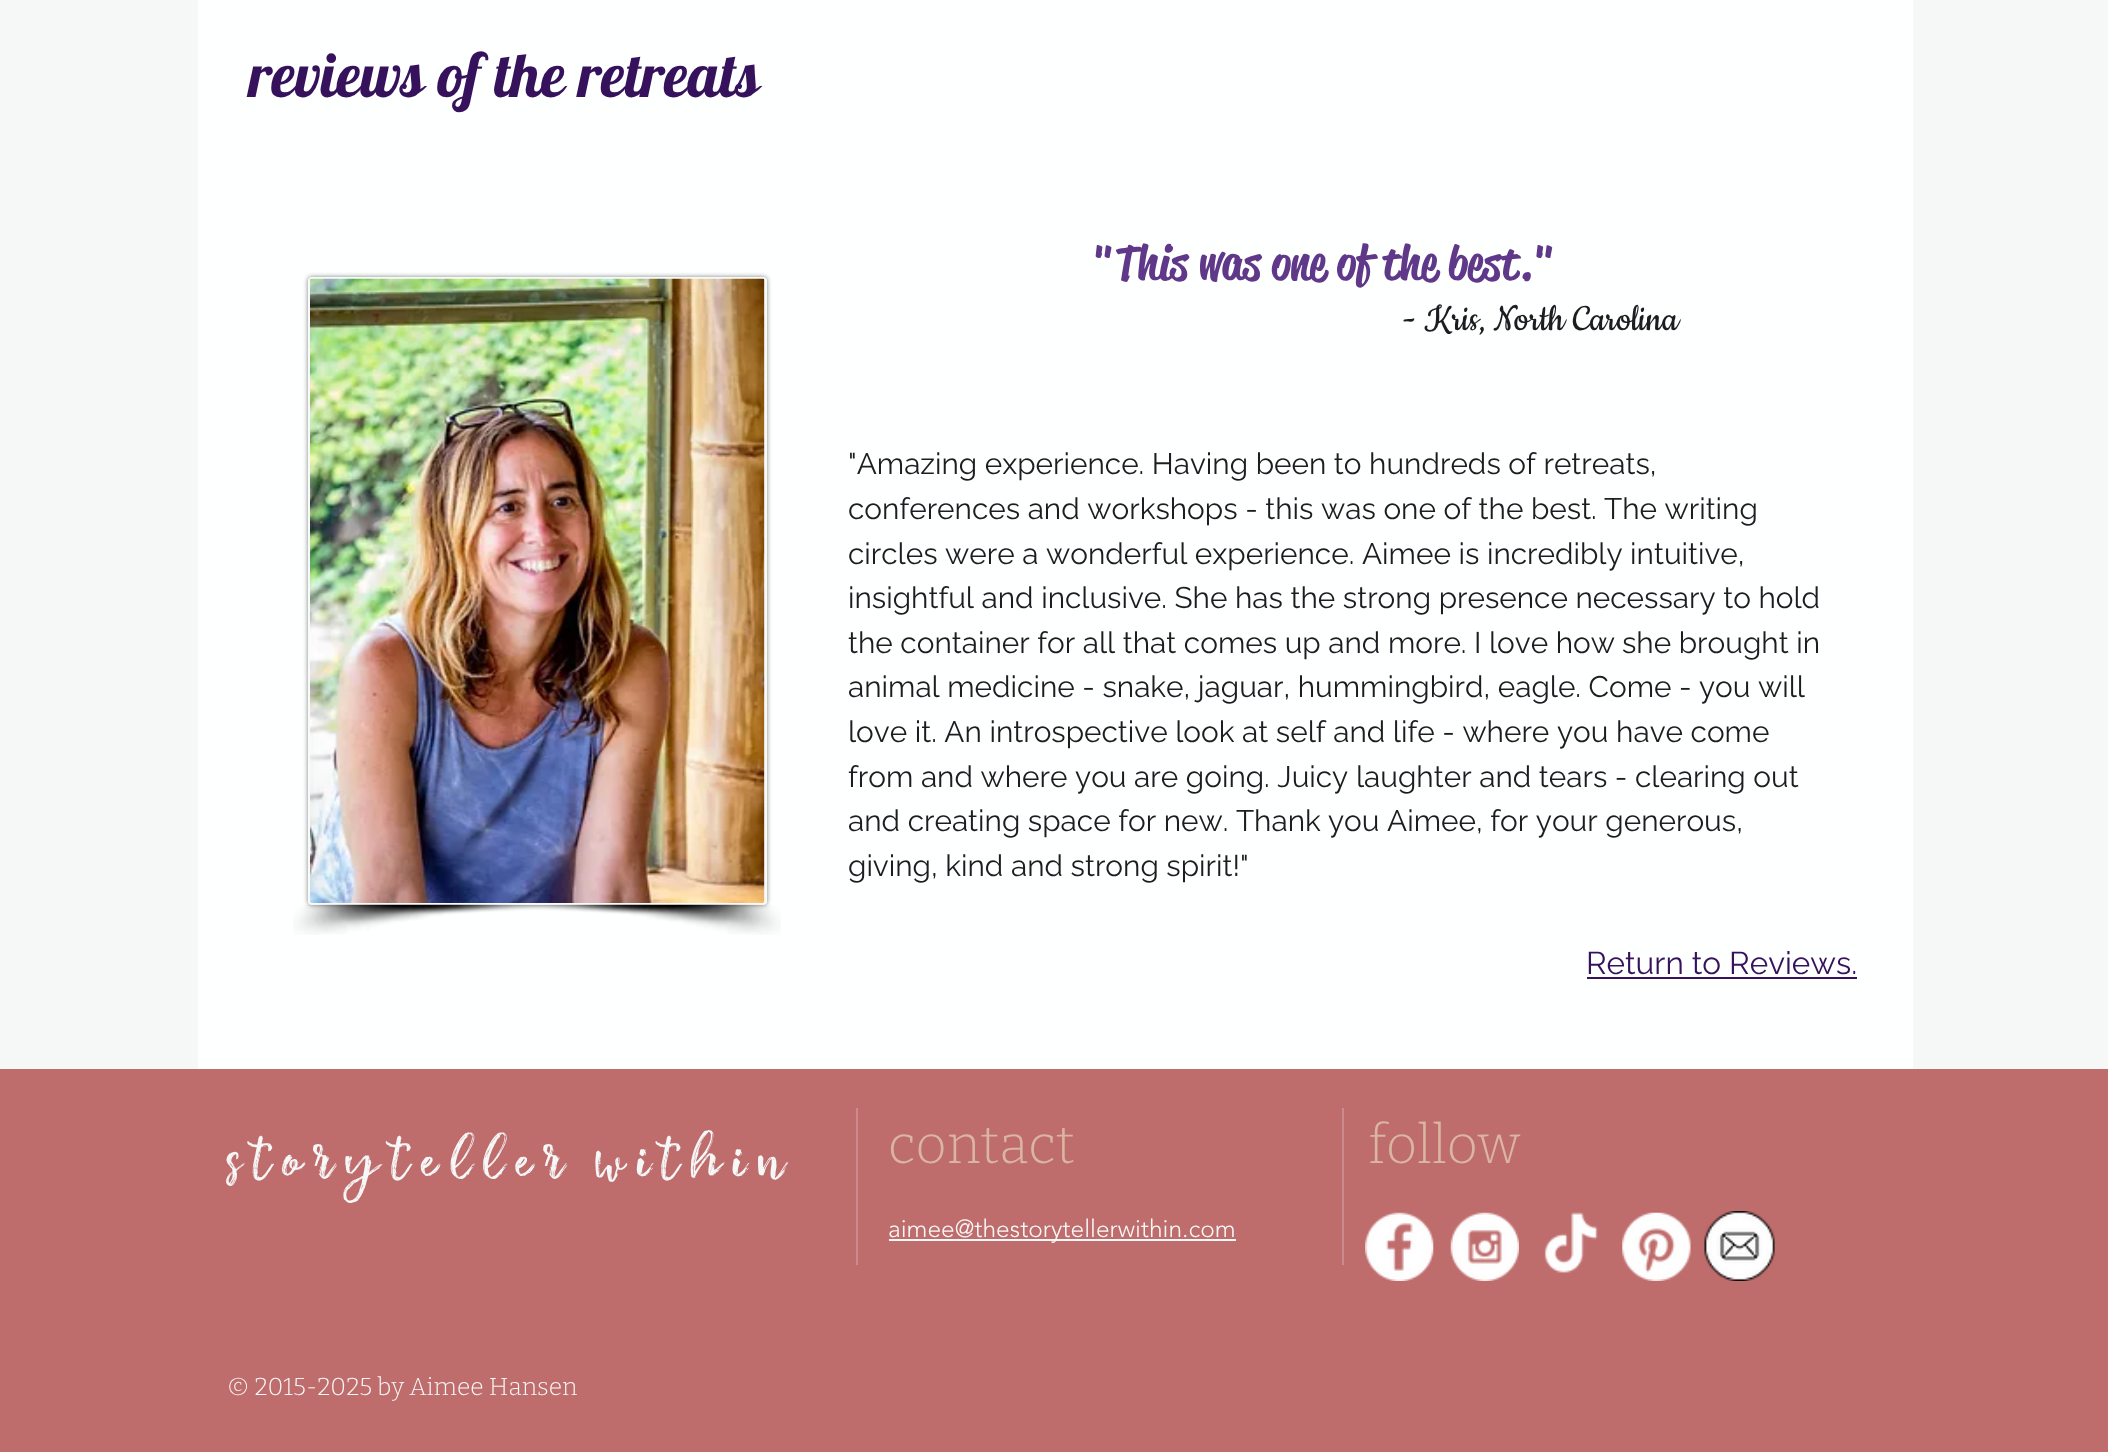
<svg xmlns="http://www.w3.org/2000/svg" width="2108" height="1452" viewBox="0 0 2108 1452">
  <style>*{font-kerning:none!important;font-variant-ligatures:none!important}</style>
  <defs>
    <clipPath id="clip1"><path d="M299 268H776V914H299ZM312 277H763C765 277 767 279 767 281V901C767 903 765 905 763 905H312C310 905 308 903 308 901V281C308 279 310 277 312 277Z" clip-rule="evenodd"/></clipPath>
  </defs>
  <rect width="100%" height="100%" fill="#f6f8f8"/>
  <path d="M198 0h1715v1069H198z" fill="#feffff"/>
  <g clip-path="url(#clip1)">
    <rect x="308" y="277" width="459" height="628" rx="4" fill="#00000080" filter="blur(2.5px)"/>
  </g>
  <rect x="308" y="277" width="459" height="628" rx="4" fill="#f6f8f863"/>
  <rect x="309" y="278" width="457" height="626" rx="3" fill="none" stroke="#f6f8f863" stroke-width="2"/>
  <image x="310" y="278" width="455" height="625" href="img/1.png"/>
  <image x="293" y="904" width="268" height="31" href="img/2.png"/>
  <image x="517" y="904" width="264" height="31" href="img/3.png"/>
  <path d="M1587 977h270v2H1587z" fill="#36115c"/>
  <path d="M0 1069h2108v383H0z" fill="#bf6c6c"/>
  <path d="M856 1108h2v157H856z" fill="#cc8b8b"/>
  <path d="M889 1239h347v2H889z" fill="#f6f8f8"/>
  <path d="M1342 1108h2v157H1342z" fill="#cc8b8b"/>
  <image x="1365" y="1212" width="69" height="69" href="img/4.png"/>
  <image x="1450" y="1212" width="69" height="69" href="img/5.png"/>
  <image x="1544" y="1212" width="54" height="61" href="img/6.png"/>
  <image x="1622" y="1212" width="69" height="69" href="img/7.png"/>
  <image x="1704" y="1211" width="71" height="70" href="img/8.png"/>
  <text x="249" y="97" font-family="Lobster" font-size="61.25" fill="#36115c">reviews of the retreats</text>
  <text x="1092" y="279" font-family="'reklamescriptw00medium'" font-size="47.25" font-weight="500" fill="#60388a">"This was one of the best."</text>
  <text x="1404" y="330" font-family="Cookie" font-size="42" fill="#1b1d20">- Kris, North Carolina</text>
  <g font-family="Raleway" font-size="29.75" fill="#1b1d20">
    <text x="848" y="474">"Amazing experience. Having been to hundreds of retreats,</text>
    <text x="848" y="519">conferences and workshops - this was one of the best.</text>
    <text x="1604" y="519">The writing</text>
    <text x="848" y="564">circles were a wonderful experience.</text>
    <text x="1362" y="564">Aimee is incredibly intuitive,</text>
    <text x="848" y="608">insightful and inclusive. She has the strong presence necessary to hold</text>
    <text x="848" y="653">the container for all that comes up and more. I love how</text>
    <text x="1622" y="653">she brought in</text>
    <text x="848" y="697">animal medicine - snake, jaguar, hummingbird, eagle. Come -</text>
    <text x="1699" y="697">you will</text>
    <text x="848" y="742">love it. An introspective look at self and life - where</text>
    <text x="1557" y="742">you have come</text>
    <text x="848" y="787">from and where you are going. Juicy</text>
    <text x="1356" y="787">laughter and tears - clearing out</text>
    <text x="848" y="831">and creating space for new. Thank</text>
    <text x="1328" y="831">you Aimee, for your generous,</text>
    <text x="848" y="876">giving, kind and strong spirit!"</text>
  </g>
  <text x="1586" y="974" font-family="Raleway" font-size="31.5" fill="#36115c">Return to Reviews.</text>
  <text x="227" y="1175" word-spacing="-2" font-family="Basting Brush" font-size="31.5" letter-spacing="12.25" fill="#f6f8f8">storyteller within</text>
  <text x="888" y="1163" font-family="Bitter" font-size="54" font-weight="100" fill="#d9b5a2">contact</text>
  <text x="888" y="1237" font-family="'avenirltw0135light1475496'" font-size="24.5" font-weight="300" fill="#f6f8f8">aimee@thestorytellerwithin.com</text>
  <text x="1368" y="1163" font-family="Bitter" font-size="54" font-weight="100" fill="#d9b5a2">follow</text>
  <text x="227" y="1395" font-family="Bitter" font-size="24.5" font-weight="100" fill="#f6f8f8">© 2015-2025 by Aimee Hansen</text>
</svg>
